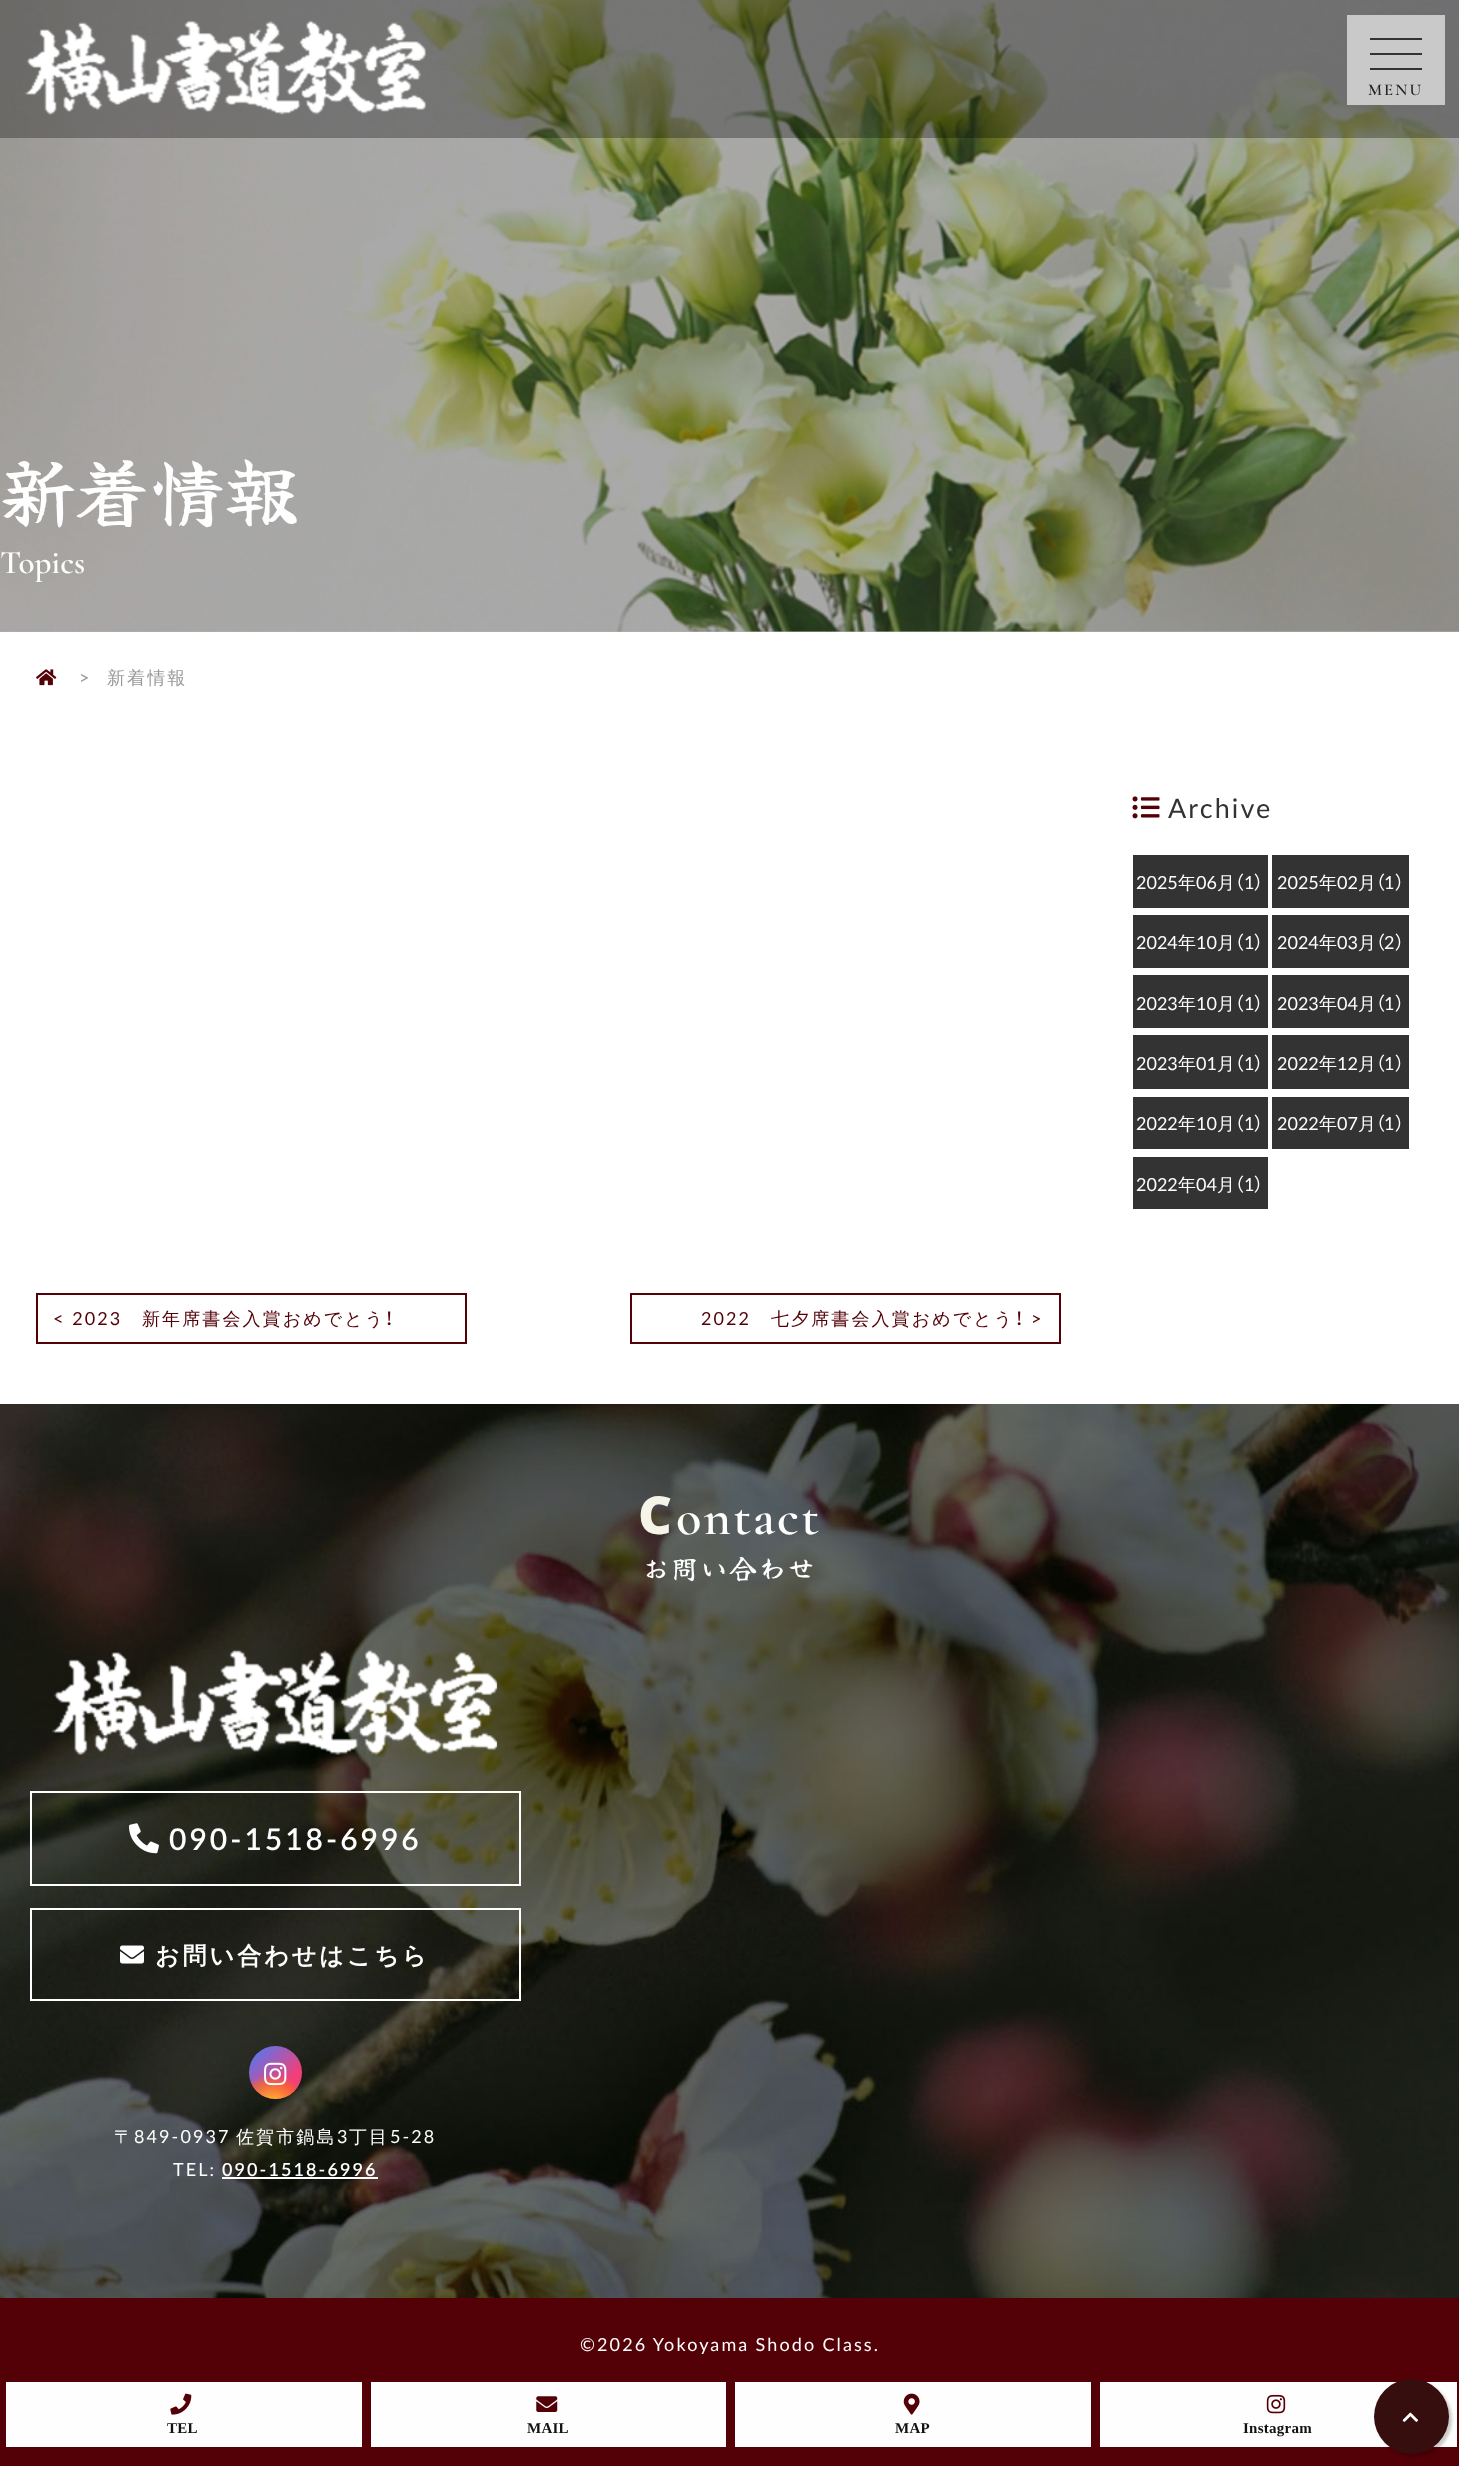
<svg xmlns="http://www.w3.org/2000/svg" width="1459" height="2469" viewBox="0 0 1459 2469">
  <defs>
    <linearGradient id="g1" gradientUnits="userSpaceOnUse" x1="249" y1="2046" x2="302" y2="2099"><stop offset="0" stop-color="#427eff"/><stop offset="0.7" stop-color="#f13f79"/></linearGradient>
    <clipPath id="clip1"><rect x="249" y="2046" width="53" height="53" rx="26.5"/></clipPath>
    <radialGradient id="g2" gradientUnits="userSpaceOnUse" cx="272" cy="2111" r="53"><stop offset="0.1" stop-color="#ffdb2c"/><stop offset="0.55" stop-color="#ff6922" stop-opacity="0.65"/><stop offset="0.7" stop-color="#ff6922" stop-opacity="0"/></radialGradient>
  </defs>
  <rect width="100%" height="100%" fill="#fff"/>
  <path d="M0 631h1459v1H0z" fill="#b3b3b3"/>
  <image x="0" y="0" width="1459" height="632" href="img/2.png"/>
  <path d="M0 0h1459v138H0z" fill="#0000004d"/>
  <image x="25" y="20" width="401" height="95" href="img/1.png"/>
  <path d="M1347 15h98v90H1347z" fill="#f0f0f0b3"/>
  <path d="M1370 38h52v2H1370z" fill="#333"/>
  <path d="M1370 53h52v2H1370z" fill="#333"/>
  <path d="M1370 68h52v2H1370z" fill="#333"/>
  <image x="36" y="669" width="21" height="17" href="img/3.png"/>
  <image x="1132" y="796" width="28" height="23" href="img/4.png"/>
  <path d="M1133 855h135v53H1133z" fill="#333"/>
  <path d="M1272 855h137v53H1272z" fill="#333"/>
  <path d="M1133 915h135v53H1133z" fill="#333"/>
  <path d="M1272 915h137v53H1272z" fill="#333"/>
  <path d="M1133 975h135v53H1133z" fill="#333"/>
  <path d="M1272 975h137v53H1272z" fill="#333"/>
  <path d="M1133 1035h135v54H1133z" fill="#333"/>
  <path d="M1272 1035h137v54H1272z" fill="#333"/>
  <path d="M1133 1097h135v52H1133z" fill="#333"/>
  <path d="M1272 1097h137v52H1272z" fill="#333"/>
  <path d="M1133 1157h135v52H1133z" fill="#333"/>
  <path d="M37 1294h429v49H37z" fill="none" stroke="#530007" stroke-width="2"/>
  <path d="M631 1294h429v49H631z" fill="none" stroke="#530007" stroke-width="2"/>
  <image x="0" y="1404" width="1459" height="894" href="img/5.png"/>
  <image x="52" y="1649" width="446" height="106" href="img/6.png"/>
  <path d="M31 1792h489v93H31z" fill="none" stroke="#fff" stroke-width="2"/>
  <image x="129" y="1823" width="30" height="31" href="img/7.png"/>
  <path d="M31 1909h489v91H31z" fill="none" stroke="#fff" stroke-width="2"/>
  <image x="120" y="1945" width="24" height="19" href="img/8.png"/>
  <circle cx="275.5" cy="2072.5" r="26.5" fill="url(#g1)"/>
  <g clip-path="url(#clip1)">
    <path d="M251 2074h47v25H251z" fill="url(#g2)"/>
  </g>
  <image x="264" y="2062" width="23" height="24" href="img/9.png"/>
  <path d="M222 2177h156v2H222z" fill="#fff"/>
  <path d="M0 2298h1459v168H0z" fill="#530007"/>
  <path d="M6 2382h356v65H6z" fill="#fefefe"/>
  <image x="170" y="2393" width="22" height="22" href="img/10.png"/>
  <path d="M371 2382h355v65H371z" fill="#fefefe"/>
  <image x="536" y="2396" width="22" height="16" href="img/11.png"/>
  <path d="M735 2382h356v65H735z" fill="#fefefe"/>
  <image x="903" y="2393" width="17" height="22" href="img/12.png"/>
  <path d="M1100 2382h357v65H1100z" fill="#fefefe"/>
  <image x="1266" y="2394" width="20" height="20" href="img/13.png"/>
  <rect x="1377" y="2382" width="75" height="75" rx="37.5" fill="#00000033" filter="blur(1.5px)"/>
  <circle cx="1411.5" cy="2416.5" r="37.5" fill="#360e0e"/>
  <image x="1402" y="2412" width="16" height="10" href="img/14.png"/>
  <text x="1368" y="95" font-family="Cormorant Garamond" font-size="16.5" font-weight="600" letter-spacing="2.1" fill="#222">MENU</text>
  <text x="0" y="521" font-family="Yuji Syuku" font-size="75" fill="#fefefe">新着情報</text>
  <text x="0" y="573" font-family="Cormorant Garamond" font-size="33" font-weight="600" fill="#fefefe">Topics</text>
  <text x="79" y="684" font-family="Lato" font-size="18" letter-spacing="2.1" fill="#999">&gt;</text>
  <text x="107" y="684" font-family="WenQuanYi Zen Hei" font-size="18" font-weight="500" letter-spacing="2.1" fill="#999">新着情報</text>
  <text x="1168" y="818" font-family="Lato" font-size="27" letter-spacing="2.1" fill="#333">Archive</text>
  <text x="1136" y="889" font-family="Lato" font-size="18" fill="#fefefe">2025</text>
  <text x="1178" y="889" font-family="WenQuanYi Zen Hei" font-size="18" font-weight="500" fill="#fefefe">年</text>
  <text x="1196" y="889" font-family="Lato" font-size="18" fill="#fefefe">06</text>
  <text x="1217" y="889" font-family="WenQuanYi Zen Hei" font-size="18" font-weight="500" fill="#fefefe">月</text>
  <text x="1235" y="889" font-family="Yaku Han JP" font-size="18" fill="#fefefe">（</text>
  <text x="1244" y="889" font-family="Lato" font-size="18" fill="#fefefe">1</text>
  <text x="1254" y="889" font-family="Yaku Han JP" font-size="18" fill="#fefefe">）</text>
  <text x="1277" y="889" font-family="Lato" font-size="18" fill="#fefefe">2025</text>
  <text x="1319" y="889" font-family="WenQuanYi Zen Hei" font-size="18" font-weight="500" fill="#fefefe">年</text>
  <text x="1337" y="889" font-family="Lato" font-size="18" fill="#fefefe">02</text>
  <text x="1358" y="889" font-family="WenQuanYi Zen Hei" font-size="18" font-weight="500" fill="#fefefe">月</text>
  <text x="1376" y="889" font-family="Yaku Han JP" font-size="18" fill="#fefefe">（</text>
  <text x="1384" y="889" font-family="Lato" font-size="18" fill="#fefefe">1</text>
  <text x="1395" y="889" font-family="Yaku Han JP" font-size="18" fill="#fefefe">）</text>
  <text x="1136" y="949" font-family="Lato" font-size="18" fill="#fefefe">2024</text>
  <text x="1178" y="949" font-family="WenQuanYi Zen Hei" font-size="18" font-weight="500" fill="#fefefe">年</text>
  <text x="1196" y="949" font-family="Lato" font-size="18" fill="#fefefe">10</text>
  <text x="1217" y="949" font-family="WenQuanYi Zen Hei" font-size="18" font-weight="500" fill="#fefefe">月</text>
  <text x="1235" y="949" font-family="Yaku Han JP" font-size="18" fill="#fefefe">（</text>
  <text x="1244" y="949" font-family="Lato" font-size="18" fill="#fefefe">1</text>
  <text x="1254" y="949" font-family="Yaku Han JP" font-size="18" fill="#fefefe">）</text>
  <text x="1277" y="949" font-family="Lato" font-size="18" fill="#fefefe">2024</text>
  <text x="1319" y="949" font-family="WenQuanYi Zen Hei" font-size="18" font-weight="500" fill="#fefefe">年</text>
  <text x="1337" y="949" font-family="Lato" font-size="18" fill="#fefefe">03</text>
  <text x="1358" y="949" font-family="WenQuanYi Zen Hei" font-size="18" font-weight="500" fill="#fefefe">月</text>
  <text x="1376" y="949" font-family="Yaku Han JP" font-size="18" fill="#fefefe">（</text>
  <text x="1384" y="949" font-family="Lato" font-size="18" fill="#fefefe">2</text>
  <text x="1395" y="949" font-family="Yaku Han JP" font-size="18" fill="#fefefe">）</text>
  <text x="1136" y="1010" font-family="Lato" font-size="18" fill="#fefefe">2023</text>
  <text x="1178" y="1010" font-family="WenQuanYi Zen Hei" font-size="18" font-weight="500" fill="#fefefe">年</text>
  <text x="1196" y="1010" font-family="Lato" font-size="18" fill="#fefefe">10</text>
  <text x="1217" y="1010" font-family="WenQuanYi Zen Hei" font-size="18" font-weight="500" fill="#fefefe">月</text>
  <text x="1235" y="1010" font-family="Yaku Han JP" font-size="18" fill="#fefefe">（</text>
  <text x="1244" y="1010" font-family="Lato" font-size="18" fill="#fefefe">1</text>
  <text x="1254" y="1010" font-family="Yaku Han JP" font-size="18" fill="#fefefe">）</text>
  <text x="1277" y="1010" font-family="Lato" font-size="18" fill="#fefefe">2023</text>
  <text x="1319" y="1010" font-family="WenQuanYi Zen Hei" font-size="18" font-weight="500" fill="#fefefe">年</text>
  <text x="1337" y="1010" font-family="Lato" font-size="18" fill="#fefefe">04</text>
  <text x="1358" y="1010" font-family="WenQuanYi Zen Hei" font-size="18" font-weight="500" fill="#fefefe">月</text>
  <text x="1376" y="1010" font-family="Yaku Han JP" font-size="18" fill="#fefefe">（</text>
  <text x="1384" y="1010" font-family="Lato" font-size="18" fill="#fefefe">1</text>
  <text x="1395" y="1010" font-family="Yaku Han JP" font-size="18" fill="#fefefe">）</text>
  <text x="1136" y="1070" font-family="Lato" font-size="18" fill="#fefefe">2023</text>
  <text x="1178" y="1070" font-family="WenQuanYi Zen Hei" font-size="18" font-weight="500" fill="#fefefe">年</text>
  <text x="1196" y="1070" font-family="Lato" font-size="18" fill="#fefefe">01</text>
  <text x="1217" y="1070" font-family="WenQuanYi Zen Hei" font-size="18" font-weight="500" fill="#fefefe">月</text>
  <text x="1235" y="1070" font-family="Yaku Han JP" font-size="18" fill="#fefefe">（</text>
  <text x="1244" y="1070" font-family="Lato" font-size="18" fill="#fefefe">1</text>
  <text x="1254" y="1070" font-family="Yaku Han JP" font-size="18" fill="#fefefe">）</text>
  <text x="1277" y="1070" font-family="Lato" font-size="18" fill="#fefefe">2022</text>
  <text x="1319" y="1070" font-family="WenQuanYi Zen Hei" font-size="18" font-weight="500" fill="#fefefe">年</text>
  <text x="1337" y="1070" font-family="Lato" font-size="18" fill="#fefefe">12</text>
  <text x="1358" y="1070" font-family="WenQuanYi Zen Hei" font-size="18" font-weight="500" fill="#fefefe">月</text>
  <text x="1376" y="1070" font-family="Yaku Han JP" font-size="18" fill="#fefefe">（</text>
  <text x="1384" y="1070" font-family="Lato" font-size="18" fill="#fefefe">1</text>
  <text x="1395" y="1070" font-family="Yaku Han JP" font-size="18" fill="#fefefe">）</text>
  <text x="1136" y="1130" font-family="Lato" font-size="18" fill="#fefefe">2022</text>
  <text x="1178" y="1130" font-family="WenQuanYi Zen Hei" font-size="18" font-weight="500" fill="#fefefe">年</text>
  <text x="1196" y="1130" font-family="Lato" font-size="18" fill="#fefefe">10</text>
  <text x="1217" y="1130" font-family="WenQuanYi Zen Hei" font-size="18" font-weight="500" fill="#fefefe">月</text>
  <text x="1235" y="1130" font-family="Yaku Han JP" font-size="18" fill="#fefefe">（</text>
  <text x="1244" y="1130" font-family="Lato" font-size="18" fill="#fefefe">1</text>
  <text x="1254" y="1130" font-family="Yaku Han JP" font-size="18" fill="#fefefe">）</text>
  <text x="1277" y="1130" font-family="Lato" font-size="18" fill="#fefefe">2022</text>
  <text x="1319" y="1130" font-family="WenQuanYi Zen Hei" font-size="18" font-weight="500" fill="#fefefe">年</text>
  <text x="1337" y="1130" font-family="Lato" font-size="18" fill="#fefefe">07</text>
  <text x="1358" y="1130" font-family="WenQuanYi Zen Hei" font-size="18" font-weight="500" fill="#fefefe">月</text>
  <text x="1376" y="1130" font-family="Yaku Han JP" font-size="18" fill="#fefefe">（</text>
  <text x="1384" y="1130" font-family="Lato" font-size="18" fill="#fefefe">1</text>
  <text x="1395" y="1130" font-family="Yaku Han JP" font-size="18" fill="#fefefe">）</text>
  <text x="1136" y="1191" font-family="Lato" font-size="18" fill="#fefefe">2022</text>
  <text x="1178" y="1191" font-family="WenQuanYi Zen Hei" font-size="18" font-weight="500" fill="#fefefe">年</text>
  <text x="1196" y="1191" font-family="Lato" font-size="18" fill="#fefefe">04</text>
  <text x="1217" y="1191" font-family="WenQuanYi Zen Hei" font-size="18" font-weight="500" fill="#fefefe">月</text>
  <text x="1235" y="1191" font-family="Yaku Han JP" font-size="18" fill="#fefefe">（</text>
  <text x="1244" y="1191" font-family="Lato" font-size="18" fill="#fefefe">1</text>
  <text x="1254" y="1191" font-family="Yaku Han JP" font-size="18" fill="#fefefe">）</text>
  <text x="53" y="1325" font-family="Lato" font-size="18" letter-spacing="2.1" fill="#530007">&lt; 2023</text>
  <text x="142" y="1325" font-family="WenQuanYi Zen Hei" font-size="18" font-weight="500" letter-spacing="2.1" fill="#530007">新年席書会入賞おめでとう</text>
  <text x="385" y="1325" font-family="Yaku Han JP" font-size="18" letter-spacing="2.1" fill="#530007">！</text>
  <text x="701" y="1325" font-family="Lato" font-size="18" letter-spacing="2.1" fill="#530007">2022</text>
  <text x="771" y="1325" font-family="WenQuanYi Zen Hei" font-size="18" font-weight="500" letter-spacing="2.1" fill="#530007">七夕席書会入賞おめでとう</text>
  <text x="1015" y="1325" font-family="Yaku Han JP" font-size="18" letter-spacing="2.1" fill="#530007">！</text>
  <text x="1031" y="1325" font-family="Lato" font-size="18" letter-spacing="2.1" fill="#530007">&gt;</text>
  <text x="638" y="1534" font-family="Noto Sans" font-size="52.5" font-weight="900" letter-spacing="2.1" fill="#f6f3e8">C</text>
  <text x="676" y="1534" font-family="Cormorant Garamond" font-size="52.5" font-weight="600" letter-spacing="2.1" fill="#fefefe">ontact</text>
  <text x="642" y="1579" font-family="Yuji Syuku" font-size="27" letter-spacing="2.1" fill="#fefefe">お問い合わせ</text>
  <text x="169" y="1850" font-family="Lato" font-size="30" font-weight="600" letter-spacing="3" fill="#fefefe">090-1518-6996</text>
  <text x="155" y="1964" font-family="WenQuanYi Zen Hei" font-size="24" font-weight="bold" letter-spacing="3" fill="#fefefe">お問い合わせはこちら</text>
  <text x="114" y="2143" font-family="WenQuanYi Zen Hei" font-size="18" font-weight="500" letter-spacing="2.1" fill="#fefefe">〒</text>
  <text x="134" y="2143" font-family="Lato" font-size="18" letter-spacing="2.1" fill="#fefefe">849-0937</text>
  <text x="236" y="2143" font-family="WenQuanYi Zen Hei" font-size="18" font-weight="500" letter-spacing="2.1" fill="#fefefe">佐賀市鍋島</text>
  <text x="337" y="2143" font-family="Lato" font-size="18" letter-spacing="2.1" fill="#fefefe">3</text>
  <text x="349" y="2143" font-family="WenQuanYi Zen Hei" font-size="18" font-weight="500" letter-spacing="2.1" fill="#fefefe">丁目</text>
  <g font-family="Lato" font-size="18" letter-spacing="2.1" fill="#fefefe">
    <text x="390" y="2143">5-28</text>
    <text x="173" y="2176">TEL:</text>
  </g>
  <text x="222" y="2176" font-family="Lato" font-size="18" font-weight="600" letter-spacing="2.1" fill="#fefefe">090-1518-6996</text>
  <text x="580" y="2351" word-spacing="-0.5" font-family="Lato" font-size="18" letter-spacing="2.1" fill="#fefefe">©2026 Yokoyama Shodo Class.</text>
  <g font-family="Liberation Serif" font-size="15" font-weight="bold" letter-spacing="0.25" fill="#111">
    <text x="167" y="2433">TEL</text>
    <text x="527" y="2433">MAIL</text>
    <text x="895" y="2433">MAP</text>
    <text x="1243" y="2433">Instagram</text>
  </g>
</svg>
